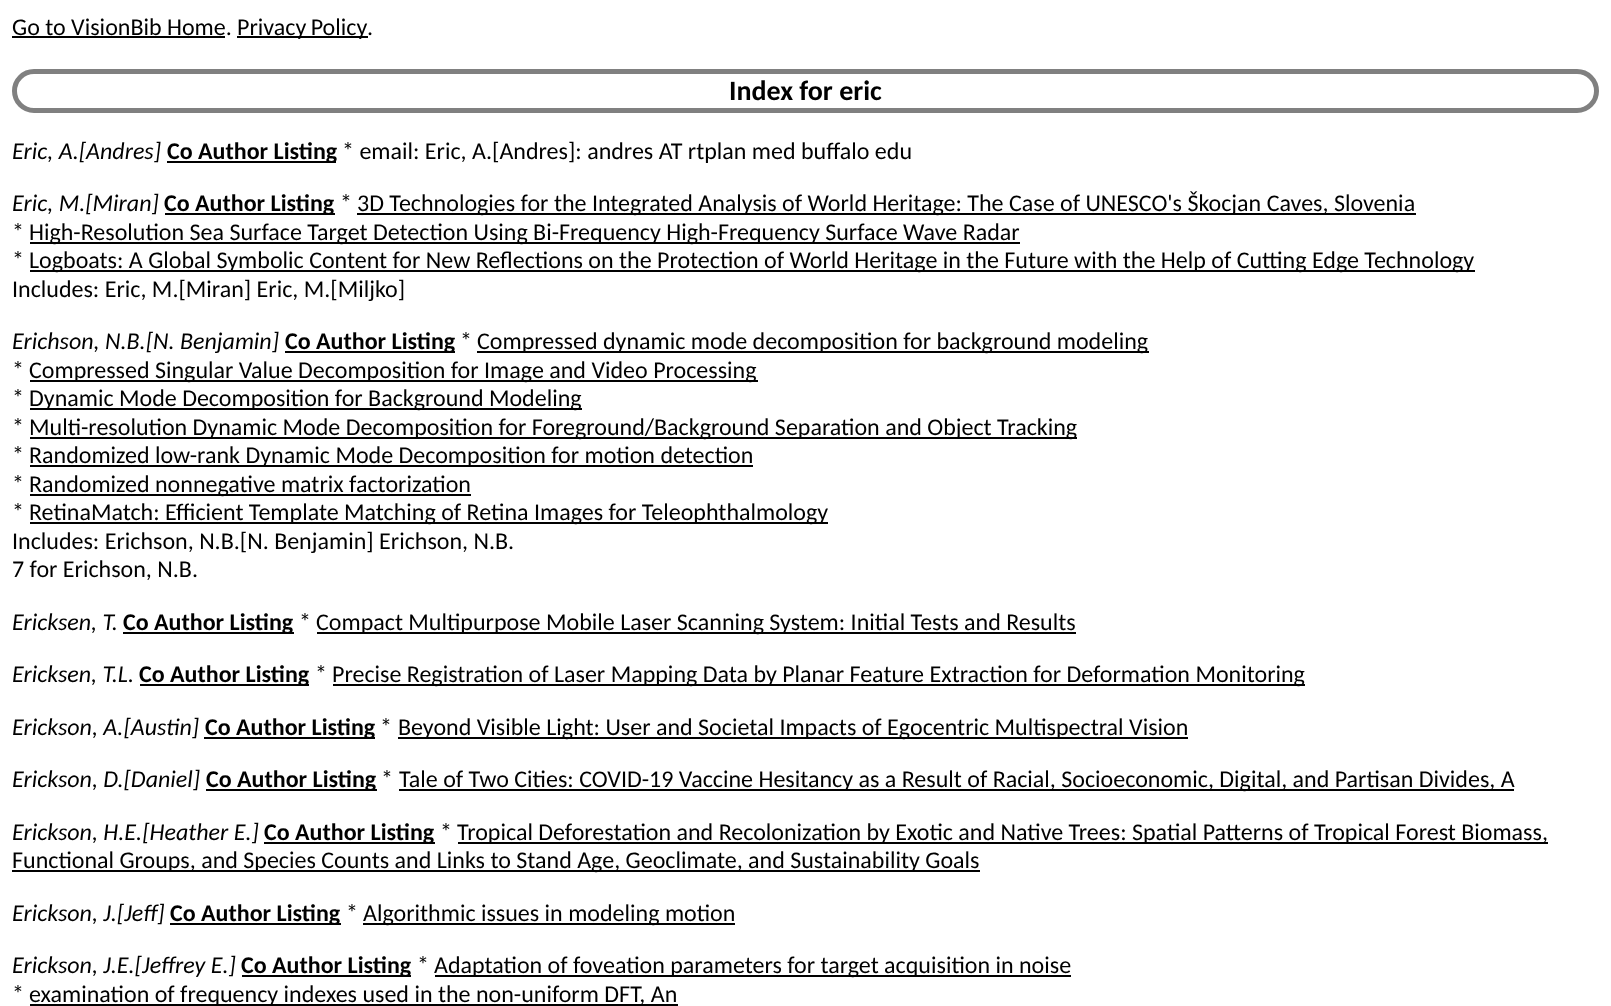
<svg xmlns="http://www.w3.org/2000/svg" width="1611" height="1006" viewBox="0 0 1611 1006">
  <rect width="100%" height="100%" fill="#fff"/>
  <path d="M12 36h213v2H12z" fill="#000"/>
  <path d="M237 36h131v2H237z" fill="#000"/>
  <rect x="14.5" y="71.5" width="1582" height="39" rx="19.5" fill="none" stroke="#808080" stroke-width="5"/>
  <path d="M167 161h169v2H167z" fill="#000"/>
  <path d="M165 213h170v2H165z" fill="#000"/>
  <path d="M357 213h1059v2H357z" fill="#000"/>
  <path d="M30 242h990v2H30z" fill="#000"/>
  <path d="M30 270h1445v2H30z" fill="#000"/>
  <path d="M285 351h170v2H285z" fill="#000"/>
  <path d="M477 351h672v2H477z" fill="#000"/>
  <path d="M30 380h728v2H30z" fill="#000"/>
  <path d="M30 408h552v2H30z" fill="#000"/>
  <path d="M30 437h1047v2H30z" fill="#000"/>
  <path d="M30 465h723v2H30z" fill="#000"/>
  <path d="M30 494h441v2H30z" fill="#000"/>
  <path d="M30 522h798v2H30z" fill="#000"/>
  <path d="M123 632h171v2H123z" fill="#000"/>
  <path d="M317 632h759v2H317z" fill="#000"/>
  <path d="M140 684h169v2H140z" fill="#000"/>
  <path d="M333 684h972v2H333z" fill="#000"/>
  <path d="M204 737h171v2H204z" fill="#000"/>
  <path d="M398 737h790v2H398z" fill="#000"/>
  <path d="M206 789h171v2H206z" fill="#000"/>
  <path d="M399 789h1115v2H399z" fill="#000"/>
  <path d="M264 842h171v2H264z" fill="#000"/>
  <path d="M458 842h1090v2H458z" fill="#000"/>
  <path d="M12 870h968v2H12z" fill="#000"/>
  <path d="M170 923h171v2H170z" fill="#000"/>
  <path d="M363 923h372v2H363z" fill="#000"/>
  <path d="M242 975h169v2H242z" fill="#000"/>
  <path d="M435 975h636v2H435z" fill="#000"/>
  <path d="M30 1004h648v2H30z" fill="#000"/>
  <g font-family="Carlito" font-size="24" fill="#000">
    <text x="12" y="35">Go to VisionBib Home.</text>
    <text x="237" y="35" word-spacing="-1">Privacy Policy</text>
    <text x="367" y="35">.</text>
  </g>
  <text x="729" y="100" font-family="Carlito" font-size="28" font-weight="bold" fill="#000">Index for eric</text>
  <text x="12" y="159" font-family="Carlito" font-size="24" font-style="italic" fill="#000">Eric, A.[Andres]</text>
  <text x="167" y="159" font-family="Carlito" font-size="24" font-weight="bold" fill="#000">Co Author Listing</text>
  <text x="342" y="159" font-family="Carlito" font-size="24" fill="#000">* email: Eric, A.[Andres]: andres AT rtplan med buffalo edu</text>
  <text x="12" y="211" font-family="Carlito" font-size="24" font-style="italic" fill="#000">Eric, M.[Miran]</text>
  <text x="164" y="211" font-family="Carlito" font-size="24" font-weight="bold" fill="#000">Co Author Listing</text>
  <g font-family="Carlito" font-size="24" fill="#000">
    <text x="340" y="211">*</text>
    <text x="357" y="211">3D Technologies for the Integrated Analysis of World Heritage: The Case of UNESCO's Škocjan Caves, Slovenia</text>
    <text x="12" y="240">*</text>
    <text x="29" y="240">High-Resolution Sea Surface Target Detection Using Bi-Frequency High-Frequency Surface Wave Radar</text>
    <text x="12" y="268">*</text>
    <text x="29" y="268">Logboats: A Global Symbolic Content for New Reflections on the Protection of World Heritage in the Future with the Help of Cutting Edge Technology</text>
    <text x="12" y="297">Includes: Eric, M.[Miran] Eric, M.[Miljko]</text>
  </g>
  <text x="12" y="349" font-family="Carlito" font-size="24" font-style="italic" fill="#000">Erichson, N.B.[N. Benjamin]</text>
  <text x="285" y="349" font-family="Carlito" font-size="24" font-weight="bold" fill="#000">Co Author Listing</text>
  <g font-family="Carlito" font-size="24" fill="#000">
    <text x="460" y="349">*</text>
    <text x="477" y="349">Compressed dynamic mode decomposition for background modeling</text>
    <text x="12" y="378">*</text>
    <text x="29" y="378">Compressed Singular Value Decomposition for Image and Video Processing</text>
    <text x="12" y="406">*</text>
    <text x="29" y="406">Dynamic Mode Decomposition for Background Modeling</text>
    <text x="12" y="435">*</text>
    <text x="29" y="435">Multi-resolution Dynamic Mode Decomposition for Foreground/Background Separation and Object Tracking</text>
    <text x="12" y="463">*</text>
    <text x="29" y="463">Randomized low-rank Dynamic Mode Decomposition for motion detection</text>
    <text x="12" y="492">*</text>
    <text x="29" y="492">Randomized nonnegative matrix factorization</text>
    <text x="12" y="520">*</text>
    <text x="29" y="520">RetinaMatch: Efficient Template Matching of Retina Images for Teleophthalmology</text>
    <text x="12" y="549">Includes: Erichson, N.B.[N. Benjamin] Erichson, N.B.</text>
    <text x="12" y="577">7 for Erichson, N.B.</text>
  </g>
  <text x="12" y="630" font-family="Carlito" font-size="24" font-style="italic" fill="#000">Ericksen, T.</text>
  <text x="123" y="630" font-family="Carlito" font-size="24" font-weight="bold" fill="#000">Co Author Listing</text>
  <g font-family="Carlito" font-size="24" fill="#000">
    <text x="299" y="630">*</text>
    <text x="316" y="630">Compact Multipurpose Mobile Laser Scanning System: Initial Tests and Results</text>
  </g>
  <text x="12" y="682" font-family="Carlito" font-size="24" font-style="italic" fill="#000">Ericksen, T.L.</text>
  <text x="139" y="682" font-family="Carlito" font-size="24" font-weight="bold" fill="#000">Co Author Listing</text>
  <g font-family="Carlito" font-size="24" fill="#000">
    <text x="315" y="682">*</text>
    <text x="332" y="682">Precise Registration of Laser Mapping Data by Planar Feature Extraction for Deformation Monitoring</text>
  </g>
  <text x="12" y="735" font-family="Carlito" font-size="24" font-style="italic" fill="#000">Erickson, A.[Austin]</text>
  <text x="205" y="735" font-family="Carlito" font-size="24" font-weight="bold" fill="#000">Co Author Listing</text>
  <g font-family="Carlito" font-size="24" fill="#000">
    <text x="380" y="735">*</text>
    <text x="398" y="735">Beyond Visible Light: User and Societal Impacts of Egocentric Multispectral Vision</text>
  </g>
  <text x="12" y="787" font-family="Carlito" font-size="24" font-style="italic" fill="#000">Erickson, D.[Daniel]</text>
  <text x="206" y="787" font-family="Carlito" font-size="24" font-weight="bold" fill="#000">Co Author Listing</text>
  <g font-family="Carlito" font-size="24" fill="#000">
    <text x="381" y="787">*</text>
    <text x="399" y="787">Tale of Two Cities: COVID-19 Vaccine Hesitancy as a Result of Racial, Socioeconomic, Digital, and Partisan Divides, A</text>
  </g>
  <text x="12" y="840" font-family="Carlito" font-size="24" font-style="italic" fill="#000">Erickson, H.E.[Heather E.]</text>
  <text x="264" y="840" font-family="Carlito" font-size="24" font-weight="bold" fill="#000">Co Author Listing</text>
  <g font-family="Carlito" font-size="24" fill="#000">
    <text x="440" y="840">*</text>
    <text x="457" y="840">Tropical Deforestation and Recolonization by Exotic and Native Trees: Spatial Patterns of Tropical Forest Biomass,</text>
    <text x="12" y="868">Functional Groups, and Species Counts and Links to Stand Age, Geoclimate, and Sustainability Goals</text>
  </g>
  <text x="12" y="921" font-family="Carlito" font-size="24" font-style="italic" fill="#000">Erickson, J.[Jeff]</text>
  <text x="170" y="921" font-family="Carlito" font-size="24" font-weight="bold" fill="#000">Co Author Listing</text>
  <g font-family="Carlito" font-size="24" fill="#000">
    <text x="346" y="921">*</text>
    <text x="363" y="921">Algorithmic issues in modeling motion</text>
  </g>
  <text x="12" y="973" font-family="Carlito" font-size="24" font-style="italic" fill="#000">Erickson, J.E.[Jeffrey E.]</text>
  <text x="241" y="973" font-family="Carlito" font-size="24" font-weight="bold" fill="#000">Co Author Listing</text>
  <g font-family="Carlito" font-size="24" fill="#000">
    <text x="417" y="973">*</text>
    <text x="434" y="973">Adaptation of foveation parameters for target acquisition in noise</text>
    <text x="12" y="1002">*</text>
    <text x="29" y="1002">examination of frequency indexes used in the non-uniform DFT, An</text>
  </g>
</svg>
